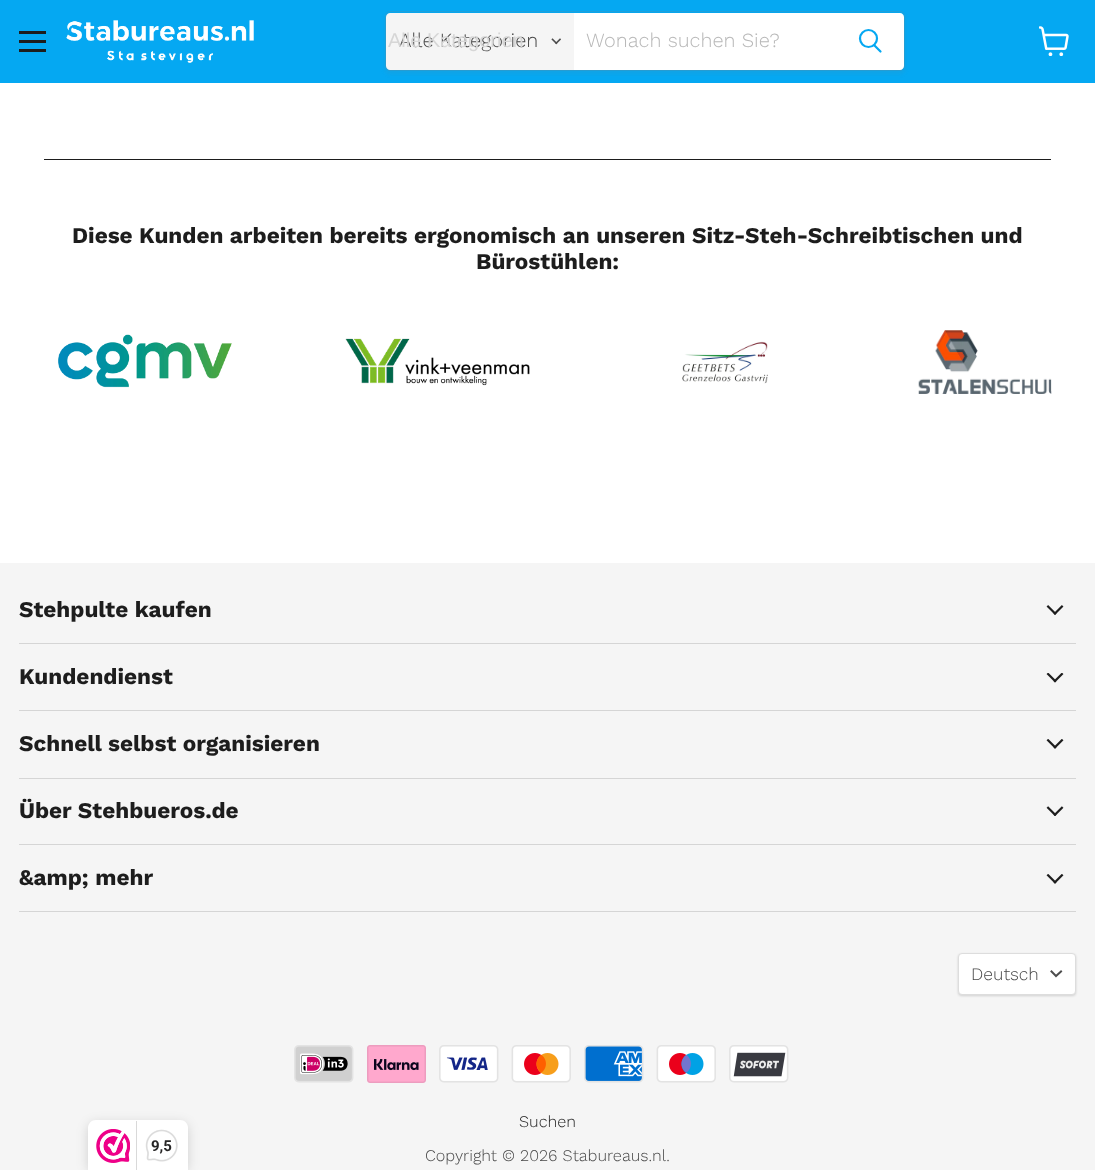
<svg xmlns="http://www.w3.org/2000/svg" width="1095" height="1170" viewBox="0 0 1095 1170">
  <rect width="100%" height="100%" fill="#fff"/>
  <path d="M0 0h1095v83H0z" fill="#05a8f2"/>
  <path d="M19 31h27v3H19z" fill="#1d1d1d"/>
  <path d="M19 40h27v3H19z" fill="#1d1d1d"/>
  <path d="M19 49h27v3H19z" fill="#1d1d1d"/>
  <image x="66" y="20" width="188" height="43" href="img/1.png"/>
  <rect x="385" y="14" width="520" height="60" rx="5" fill="#8080801c" filter="blur(2px)"/>
  <rect x="385.5" y="11.5" width="519" height="59" rx="4.5" fill="none" stroke="#80808033"/>
  <path d="M390 13H574V70H390C388 70 386 68 386 66V17C386 15 388 13 390 13Z" fill="#f5f5f5"/>
  <image x="551" y="38" width="10" height="7" href="img/2.png"/>
  <path d="M574 13h262v57H574z" fill="#fff"/>
  <path d="M836 13H900C902 13 904 15 904 17V66C904 68 902 70 900 70H836Z" fill="#fff"/>
  <path d="M880.5 51.5L874.5 45.5" fill="none" stroke="#05a8f2" stroke-width="2.2" stroke-linecap="round"/>
  <circle cx="868.5" cy="38.5" r="8.5" fill="none" stroke="#05a8f2" stroke-width="2.2"/>
  <image x="1039" y="26" width="30" height="30" href="img/3.png"/>
  <path d="M44 159h1007v1H44z" fill="#1d1d1d"/>
  <image x="58" y="334" width="174" height="54" href="img/4.png"/>
  <image x="345" y="338" width="185" height="48" href="img/5.png"/>
  <image x="682" y="341" width="86" height="43" href="img/6.png"/>
  <image x="918" y="330" width="134" height="64" href="img/7.png"/>
  <path d="M0 563h1095v607H0z" fill="#f5f5f5"/>
  <path d="M19 643h1057v1H19z" fill="#d5d5d5"/>
  <image x="1046" y="605" width="18" height="10" href="img/8.png"/>
  <path d="M19 710h1057v1H19z" fill="#d5d5d5"/>
  <image x="1046" y="673" width="18" height="10" href="img/9.png"/>
  <path d="M19 778h1057v1H19z" fill="#d5d5d5"/>
  <image x="1046" y="739" width="18" height="10" href="img/10.png"/>
  <path d="M19 844h1057v1H19z" fill="#d5d5d5"/>
  <image x="1046" y="806" width="18" height="10" href="img/11.png"/>
  <path d="M19 911h1057v1H19z" fill="#d5d5d5"/>
  <image x="1046" y="874" width="18" height="10" href="img/10.png"/>
  <rect x="958" y="954" width="118" height="42" rx="4" fill="#00000026" filter="blur(1px)"/>
  <rect x="958.5" y="953.5" width="117" height="41" rx="3.5" fill="#fff" stroke="#ddd"/>
  <path d="M1056 976L1061 971.5M1056 976L1051.5 971.5" fill="none" stroke="#4d4d4d" stroke-width="2" stroke-linecap="square"/>
  <image x="294" y="1045" width="60" height="38" href="img/12.png"/>
  <image x="367" y="1045" width="59" height="38" href="img/13.png"/>
  <image x="439" y="1045" width="60" height="38" href="img/14.png"/>
  <image x="511" y="1045" width="60" height="38" href="img/15.png"/>
  <image x="584" y="1045" width="60" height="38" href="img/16.png"/>
  <image x="656" y="1045" width="60" height="38" href="img/17.png"/>
  <image x="729" y="1045" width="60" height="38" href="img/18.png"/>
  <rect x="88" y="1123" width="100" height="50" rx="8" fill="#00000026" filter="blur(6px)"/>
  <path d="M96 1120H180C184.5 1120 188 1123.5 188 1128V1170H88V1128C88 1123.5 91.5 1120 96 1120Z" fill="#fff"/>
  <image x="96" y="1129" width="34" height="34" href="img/19.png"/>
  <path d="M136 1121h1v49H136z" fill="#d9d9d9"/>
  <image x="145" y="1129" width="33" height="33" href="img/20.png"/>
  <text x="399" y="47" font-family="Work Sans" font-size="20" font-weight="300" fill="#484848">Alle Kategorien</text>
  <text x="388" y="47" font-family="Liberation Sans" font-size="20" fill="#d6d6d6">Alle Kategorien</text>
  <text x="586" y="47" font-family="Work Sans" font-size="20" font-weight="300" fill="#b8b8b8">Wonach suchen Sie?</text>
  <g font-family="Work Sans" font-size="22.5" font-weight="bold" fill="#1d1d1d">
    <text x="72" y="243">Diese Kunden arbeiten bereits ergonomisch an unseren Sitz-Steh-Schreibtischen und</text>
    <text x="476" y="269">Bürostühlen:</text>
    <text x="19" y="617">Stehpulte kaufen</text>
    <text x="19" y="684">Kundendienst</text>
    <text x="19" y="751">Schnell selbst organisieren</text>
    <text x="19" y="818">Über Stehbueros.de</text>
    <text x="19" y="885">&amp;amp; mehr</text>
  </g>
  <text x="971" y="980" font-family="Work Sans" font-size="17.5" font-weight="300" fill="#484848">Deutsch</text>
  <text x="519" y="1127" font-family="Work Sans" font-size="16.25" font-weight="300" fill="#1d1d1d">Suchen</text>
  <text x="425" y="1161" font-family="Work Sans" font-size="16.25" font-weight="300" fill="#484848">Copyright © 2026 Stabureaus.nl.</text>
  <text x="151" y="1151" font-family="Roboto" font-size="15" font-weight="bold" fill="#272626">9,5</text>
</svg>
